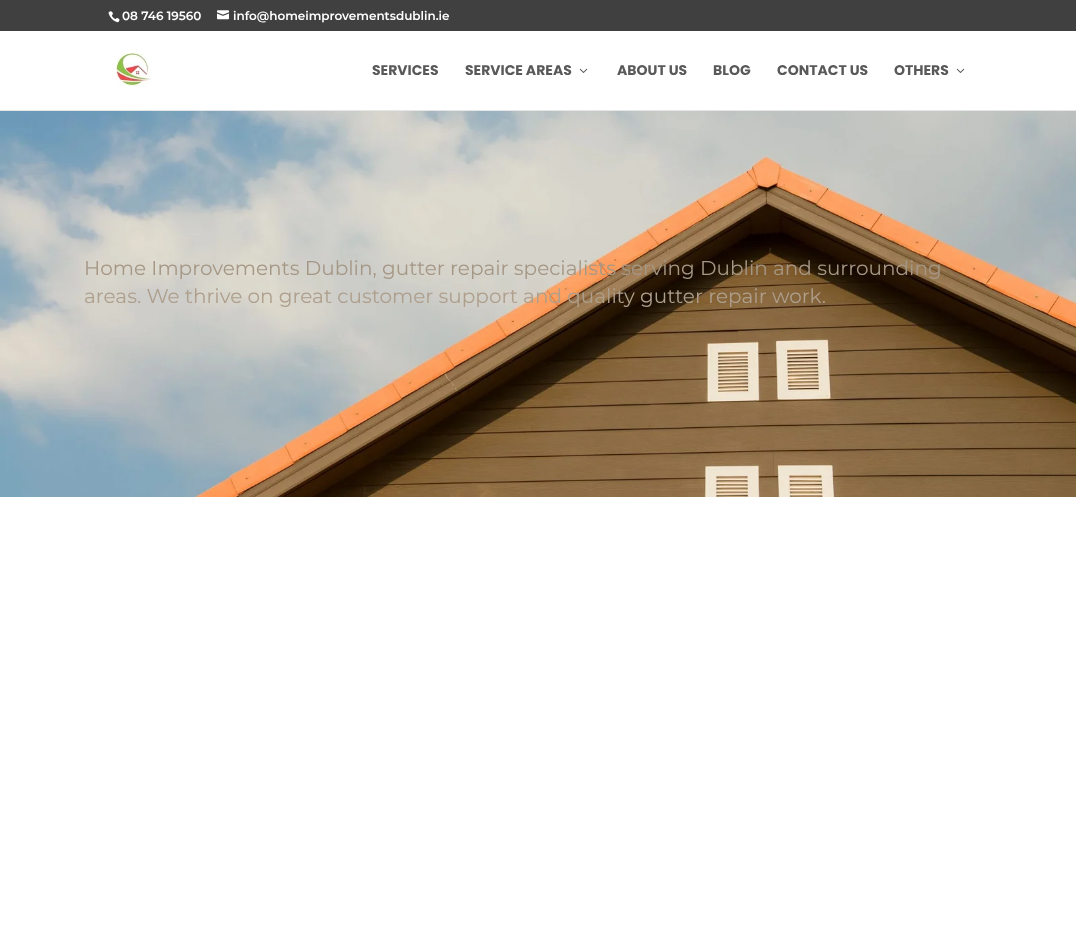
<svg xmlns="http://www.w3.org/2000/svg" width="1076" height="929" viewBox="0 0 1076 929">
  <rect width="100%" height="100%" fill="#fff"/>
  <path d="M0 0h1076v31H0z" fill="#404040"/>
  <image x="108" y="11" width="12" height="12" href="img/1.png"/>
  <image x="217" y="10" width="12" height="10" href="img/2.png"/>
  <path d="M0 110h1076v1H0z" fill="#e6e6e6"/>
  <image x="116" y="52" width="35" height="34" href="img/3.png"/>
  <image x="579" y="68" width="9" height="5" href="img/4.png"/>
  <image x="956" y="68" width="9" height="5" href="img/4.png"/>
  <image x="0" y="111" width="1076" height="386" href="img/5.png"/>
  <g font-family="'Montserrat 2'" font-size="12" font-weight="100" fill="#fff">
    <text x="122" y="20">08 746 19560</text>
    <text x="233" y="20">info@homeimprovementsdublin.ie</text>
  </g>
  <g font-family="Poppins" font-size="14" font-weight="bold" fill="#595959">
    <text x="372" y="75">SERVICES</text>
    <text x="465" y="75">SERVICE AREAS</text>
    <text x="617" y="75">ABOUT US</text>
    <text x="713" y="75">BLOG</text>
    <text x="777" y="75">CONTACT US</text>
    <text x="894" y="75">OTHERS</text>
  </g>
  <text x="84" y="275" font-family="Montserrat" font-size="20" font-weight="100" fill="#a59785">Home Improvements Dublin, gutter repair specialists serving Dublin and surrounding</text>
  <text x="84" y="303" font-family="Montserrat" font-size="20" font-weight="100" fill="#ae9f8d">areas. We thrive on great customer support and quality gutter repair work.</text>
</svg>
